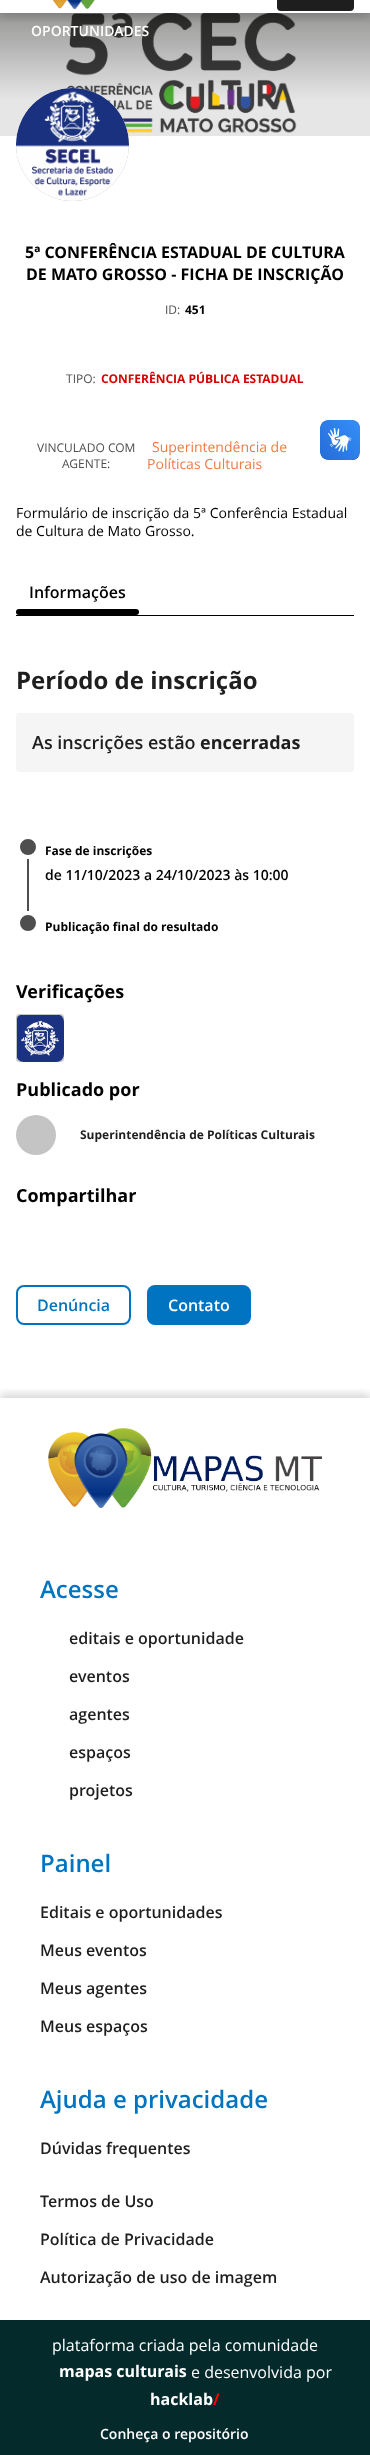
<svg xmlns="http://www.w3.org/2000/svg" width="370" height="2455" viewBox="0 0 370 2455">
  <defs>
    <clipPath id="clip1"><path d="M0 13h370v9H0z"/></clipPath>
    <clipPath id="clip2"><path d="M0 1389h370v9H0z"/></clipPath>
  </defs>
  <rect width="100%" height="100%" fill="#fff"/>
  <image x="0" y="13" width="370" height="123" href="img/2.png"/>
  <g clip-path="url(#clip1)">
    <path d="M0 -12h370v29H0z" fill="#00000029" filter="blur(4px)"/>
  </g>
  <image x="52" y="0" width="43" height="9" href="img/1.png"/>
  <rect x="277" y="-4" width="77" height="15" rx="4" fill="#1e1e1e"/>
  <circle cx="72.5" cy="144.5" r="56.5" fill="#c4c4c4"/>
  <image x="16" y="88" width="113" height="113" href="img/3.png"/>
  <path d="M16 615h338v1H16z" fill="#000"/>
  <rect x="16" y="609" width="123" height="6" rx="3" fill="#000"/>
  <rect x="16" y="713" width="338" height="59" rx="4" fill="#f5f5f5"/>
  <path d="M27 835h2v76H27z" fill="#4e4e4e"/>
  <circle cx="28" cy="847" r="10" fill="#4e4e4e" stroke="#fff" stroke-width="4"/>
  <circle cx="28" cy="923" r="10" fill="#4e4e4e" stroke="#fff" stroke-width="4"/>
  <rect x="16" y="1014" width="48" height="48" rx="4" fill="#c4c4c4"/>
  <image x="17" y="1015" width="47" height="47" href="img/4.png"/>
  <circle cx="36" cy="1135" r="20" fill="#c4c4c4"/>
  <rect x="17" y="1286" width="113" height="38" rx="7" fill="none" stroke="#0074c1" stroke-width="2"/>
  <rect x="148" y="1286" width="102" height="38" rx="7" fill="#0074c1" stroke="#0074c1" stroke-width="2"/>
  <g clip-path="url(#clip2)">
    <path d="M0 1394h370v1059H0z" fill="#00000029" filter="blur(4px)"/>
  </g>
  <image x="48" y="1428" width="274" height="80" href="img/5.png"/>
  <path d="M0 2320h370v135H0z" fill="#042a2b"/>
  <image x="320" y="420" width="40" height="40" href="img/6.png"/>
  <image x="320" y="420" width="40" height="40" href="img/7.png"/>
  <text x="31" y="36" font-family="Open Sans" font-size="14" font-weight="600" fill="#fff">OPORTUNIDADES</text>
  <g font-family="Open Sans" font-size="16" font-weight="bold" fill="#000">
    <text x="25" y="258">5ª CONFERÊNCIA ESTADUAL DE CULTURA</text>
    <text x="26" y="280">DE MATO GROSSO - FICHA DE INSCRIÇÃO</text>
  </g>
  <text x="165" y="314" font-family="Open Sans" font-size="12" fill="#4e4e4e">ID:</text>
  <text x="185" y="314" font-family="Open Sans" font-size="12" font-weight="bold" fill="#000">451</text>
  <text x="66" y="383" font-family="Open Sans" font-size="12" fill="#4e4e4e">TIPO:</text>
  <text x="101" y="383" font-family="Open Sans" font-size="12" font-weight="bold" fill="#d50200">CONFERÊNCIA PÚBLICA ESTADUAL</text>
  <g font-family="Open Sans" font-size="12" fill="#4e4e4e">
    <text x="37" y="452">VINCULADO COM</text>
    <text x="62" y="468">AGENTE:</text>
  </g>
  <g font-family="Open Sans" font-size="14" fill="#ef7b45">
    <text x="152" y="452">Superintendência de</text>
    <text x="147" y="469">Políticas Culturais</text>
  </g>
  <g font-family="Open Sans" font-size="14" fill="#000">
    <text x="16" y="518">Formulário de inscrição da 5ª Conferência Estadual</text>
    <text x="16" y="536">de Cultura de Mato Grosso.</text>
  </g>
  <text x="29" y="598" font-family="Open Sans" font-size="16" font-weight="600" fill="#000">Informações</text>
  <text x="16" y="689" font-family="Open Sans" font-size="24" font-weight="bold" fill="#1e1e1e">Período de inscrição</text>
  <text x="32" y="749" font-family="Open Sans" font-size="18" font-weight="600" fill="#1e1e1e">As inscrições estão</text>
  <text x="200" y="749" font-family="Open Sans" font-size="18" font-weight="bold" fill="#1e1e1e">encerradas</text>
  <text x="45" y="855" font-family="Open Sans" font-size="12" font-weight="bold" fill="#000">Fase de inscrições</text>
  <text x="45" y="880" font-family="Open Sans" font-size="14" font-weight="600" fill="#000">de 11/10/2023 a 24/10/2023 às 10:00</text>
  <text x="45" y="931" font-family="Open Sans" font-size="12" font-weight="bold" fill="#000">Publicação final do resultado</text>
  <g font-family="Open Sans" font-size="18" font-weight="bold" fill="#000">
    <text x="16" y="998">Verificações</text>
    <text x="16" y="1096">Publicado por</text>
  </g>
  <text x="80" y="1139" font-family="Open Sans" font-size="12" font-weight="bold" fill="#1e1e1e">Superintendência de Políticas Culturais</text>
  <text x="16" y="1202" font-family="Open Sans" font-size="18" font-weight="bold" fill="#000">Compartilhar</text>
  <text x="37" y="1311" font-family="Open Sans" font-size="16" font-weight="600" fill="#0074c1">Denúncia</text>
  <text x="168" y="1311" font-family="Open Sans" font-size="16" font-weight="600" fill="#fff">Contato</text>
  <text x="40" y="1598" font-family="Open Sans" font-size="24" font-weight="600" fill="#0074c1">Acesse</text>
  <g font-family="Open Sans" font-size="16" font-weight="600" fill="#1e1e1e">
    <text x="69" y="1644">editais e oportunidade</text>
    <text x="69" y="1682">eventos</text>
    <text x="69" y="1720">agentes</text>
    <text x="69" y="1758">espaços</text>
    <text x="69" y="1796">projetos</text>
  </g>
  <text x="40" y="1872" font-family="Open Sans" font-size="24" font-weight="600" fill="#0074c1">Painel</text>
  <g font-family="Open Sans" font-size="16" font-weight="600" fill="#1e1e1e">
    <text x="40" y="1918">Editais e oportunidades</text>
    <text x="40" y="1956">Meus eventos</text>
    <text x="40" y="1994">Meus agentes</text>
    <text x="40" y="2032">Meus espaços</text>
  </g>
  <text x="40" y="2108" font-family="Open Sans" font-size="24" font-weight="600" fill="#0074c1">Ajuda e privacidade</text>
  <g font-family="Open Sans" font-size="16" font-weight="600" fill="#1e1e1e">
    <text x="40" y="2154">Dúvidas frequentes</text>
    <text x="40" y="2207">Termos de Uso</text>
    <text x="40" y="2245">Política de Privacidade</text>
    <text x="40" y="2283">Autorização de uso de imagem</text>
  </g>
  <text x="52" y="2351" font-family="Open Sans" font-size="16" fill="#fff">plataforma criada pela comunidade</text>
  <text x="59" y="2377" font-family="Open Sans" font-size="16" font-weight="bold" fill="#fff">mapas culturais</text>
  <text x="191" y="2378" font-family="Open Sans" font-size="16" fill="#fff">e desenvolvida por</text>
  <text x="150" y="2405" font-family="Open Sans" font-size="16" font-weight="bold" fill="#fff">hacklab</text>
  <text x="213" y="2405" font-family="Open Sans" font-size="16" font-weight="bold" fill="#f00">/</text>
  <text x="100" y="2439" font-family="Open Sans" font-size="14" font-weight="600" fill="#fff">Conheça o repositório</text>
</svg>
